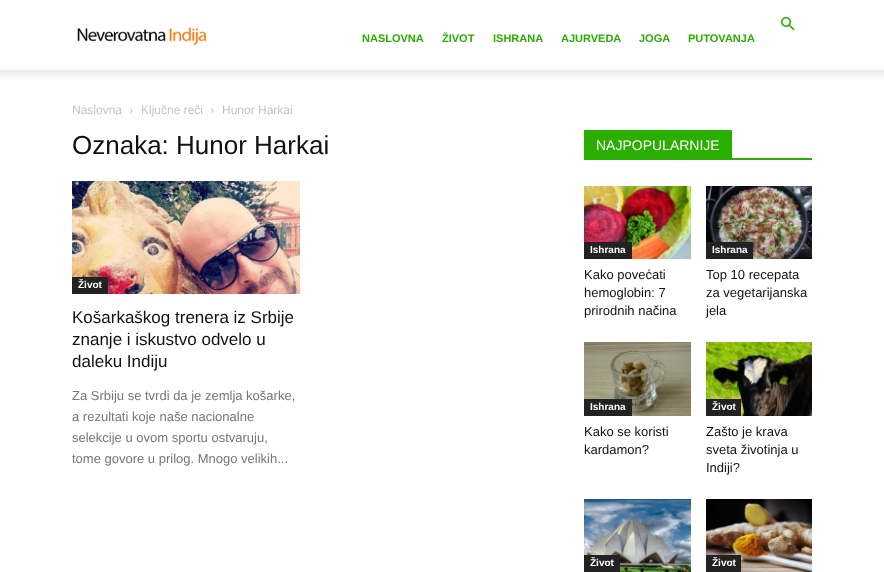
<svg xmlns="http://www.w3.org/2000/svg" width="884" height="572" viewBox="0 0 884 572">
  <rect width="100%" height="100%" fill="#fff"/>
  <image x="781" y="16" width="14" height="15" href="img/1.png"/>
  <image x="77" y="27" width="130" height="18" href="img/2.png"/>
  <image x="0" y="70" width="884" height="9" href="img/3.png"/>
  <image x="130" y="108" width="3" height="5" href="img/4.png"/>
  <image x="211" y="108" width="3" height="5" href="img/4.png"/>
  <image x="72" y="181" width="228" height="113" href="img/5.png"/>
  <path d="M72 277h36v17H72z" fill="#222"/>
  <path d="M584 158h228v2H584z" fill="#2aae00"/>
  <path d="M584 130h148v28H584z" fill="#2aae00"/>
  <image x="584" y="186" width="107" height="73" href="img/6.png"/>
  <path d="M584 242h48v17H584z" fill="#222"/>
  <image x="706" y="186" width="106" height="73" href="img/7.png"/>
  <path d="M706 242h47v17H706z" fill="#222"/>
  <image x="584" y="342" width="107" height="74" href="img/8.png"/>
  <path d="M584 399h48v17H584z" fill="#222"/>
  <image x="706" y="342" width="106" height="74" href="img/9.png"/>
  <path d="M706 399h35v17H706z" fill="#222"/>
  <image x="584" y="499" width="107" height="73" href="img/10.png"/>
  <path d="M584 555h36v17H584z" fill="#222"/>
  <image x="706" y="499" width="106" height="73" href="img/11.png"/>
  <path d="M706 555h35v17H706z" fill="#222"/>
  <g font-family="Liberation Sans" font-size="11" font-weight="bold" fill="#2aae00">
    <text x="362" y="42">NASLOVNA</text>
    <text x="442" y="42">ŽIVOT</text>
    <text x="493" y="42">ISHRANA</text>
    <text x="561" y="42">AJURVEDA</text>
    <text x="639" y="42">JOGA</text>
    <text x="688" y="42">PUTOVANJA</text>
  </g>
  <g font-family="Liberation Sans" font-size="12" fill="#c3c3c3">
    <text x="72" y="114">Naslovna</text>
    <text x="141" y="114">Ključne reči</text>
    <text x="222" y="114">Hunor Harkai</text>
  </g>
  <text x="72" y="154" font-family="Liberation Sans" font-size="26" fill="#111">Oznaka: Hunor Harkai</text>
  <text x="78" y="288" font-family="Liberation Sans" font-size="10" font-weight="bold" fill="#fff">Život</text>
  <g font-family="Liberation Sans" font-size="17" fill="#111">
    <text x="72" y="323">Košarkaškog trenera iz Srbije</text>
    <text x="72" y="345">znanje i iskustvo odvelo u</text>
    <text x="72" y="367">daleku Indiju</text>
  </g>
  <g font-family="Liberation Sans" font-size="13" fill="#767676">
    <text x="72" y="400">Za Srbiju se tvrdi da je zemlja košarke,</text>
    <text x="72" y="421">a rezultati koje naše nacionalne</text>
    <text x="72" y="442">selekcije u ovom sportu ostvaruju,</text>
    <text x="72" y="463">tome govore u prilog. Mnogo velikih...</text>
  </g>
  <text x="596" y="150" font-family="Liberation Sans" font-size="14" fill="#fff">NAJPOPULARNIJE</text>
  <text x="590" y="253" font-family="Liberation Sans" font-size="10" font-weight="bold" fill="#fff">Ishrana</text>
  <g font-family="Liberation Sans" font-size="13" fill="#111">
    <text x="584" y="279">Kako povećati</text>
    <text x="584" y="297">hemoglobin: 7</text>
    <text x="584" y="315">prirodnih načina</text>
  </g>
  <text x="712" y="253" font-family="Liberation Sans" font-size="10" font-weight="bold" fill="#fff">Ishrana</text>
  <g font-family="Liberation Sans" font-size="13" fill="#111">
    <text x="706" y="279">Top 10 recepata</text>
    <text x="706" y="297">za vegetarijanska</text>
    <text x="706" y="315">jela</text>
  </g>
  <text x="590" y="410" font-family="Liberation Sans" font-size="10" font-weight="bold" fill="#fff">Ishrana</text>
  <g font-family="Liberation Sans" font-size="13" fill="#111">
    <text x="584" y="436">Kako se koristi</text>
    <text x="584" y="454">kardamon?</text>
  </g>
  <text x="712" y="410" font-family="Liberation Sans" font-size="10" font-weight="bold" fill="#fff">Život</text>
  <g font-family="Liberation Sans" font-size="13" fill="#111">
    <text x="706" y="436">Zašto je krava</text>
    <text x="706" y="454">sveta životinja u</text>
    <text x="706" y="472">Indiji?</text>
  </g>
  <g font-family="Liberation Sans" font-size="10" font-weight="bold" fill="#fff">
    <text x="590" y="566">Život</text>
    <text x="712" y="566">Život</text>
  </g>
</svg>
